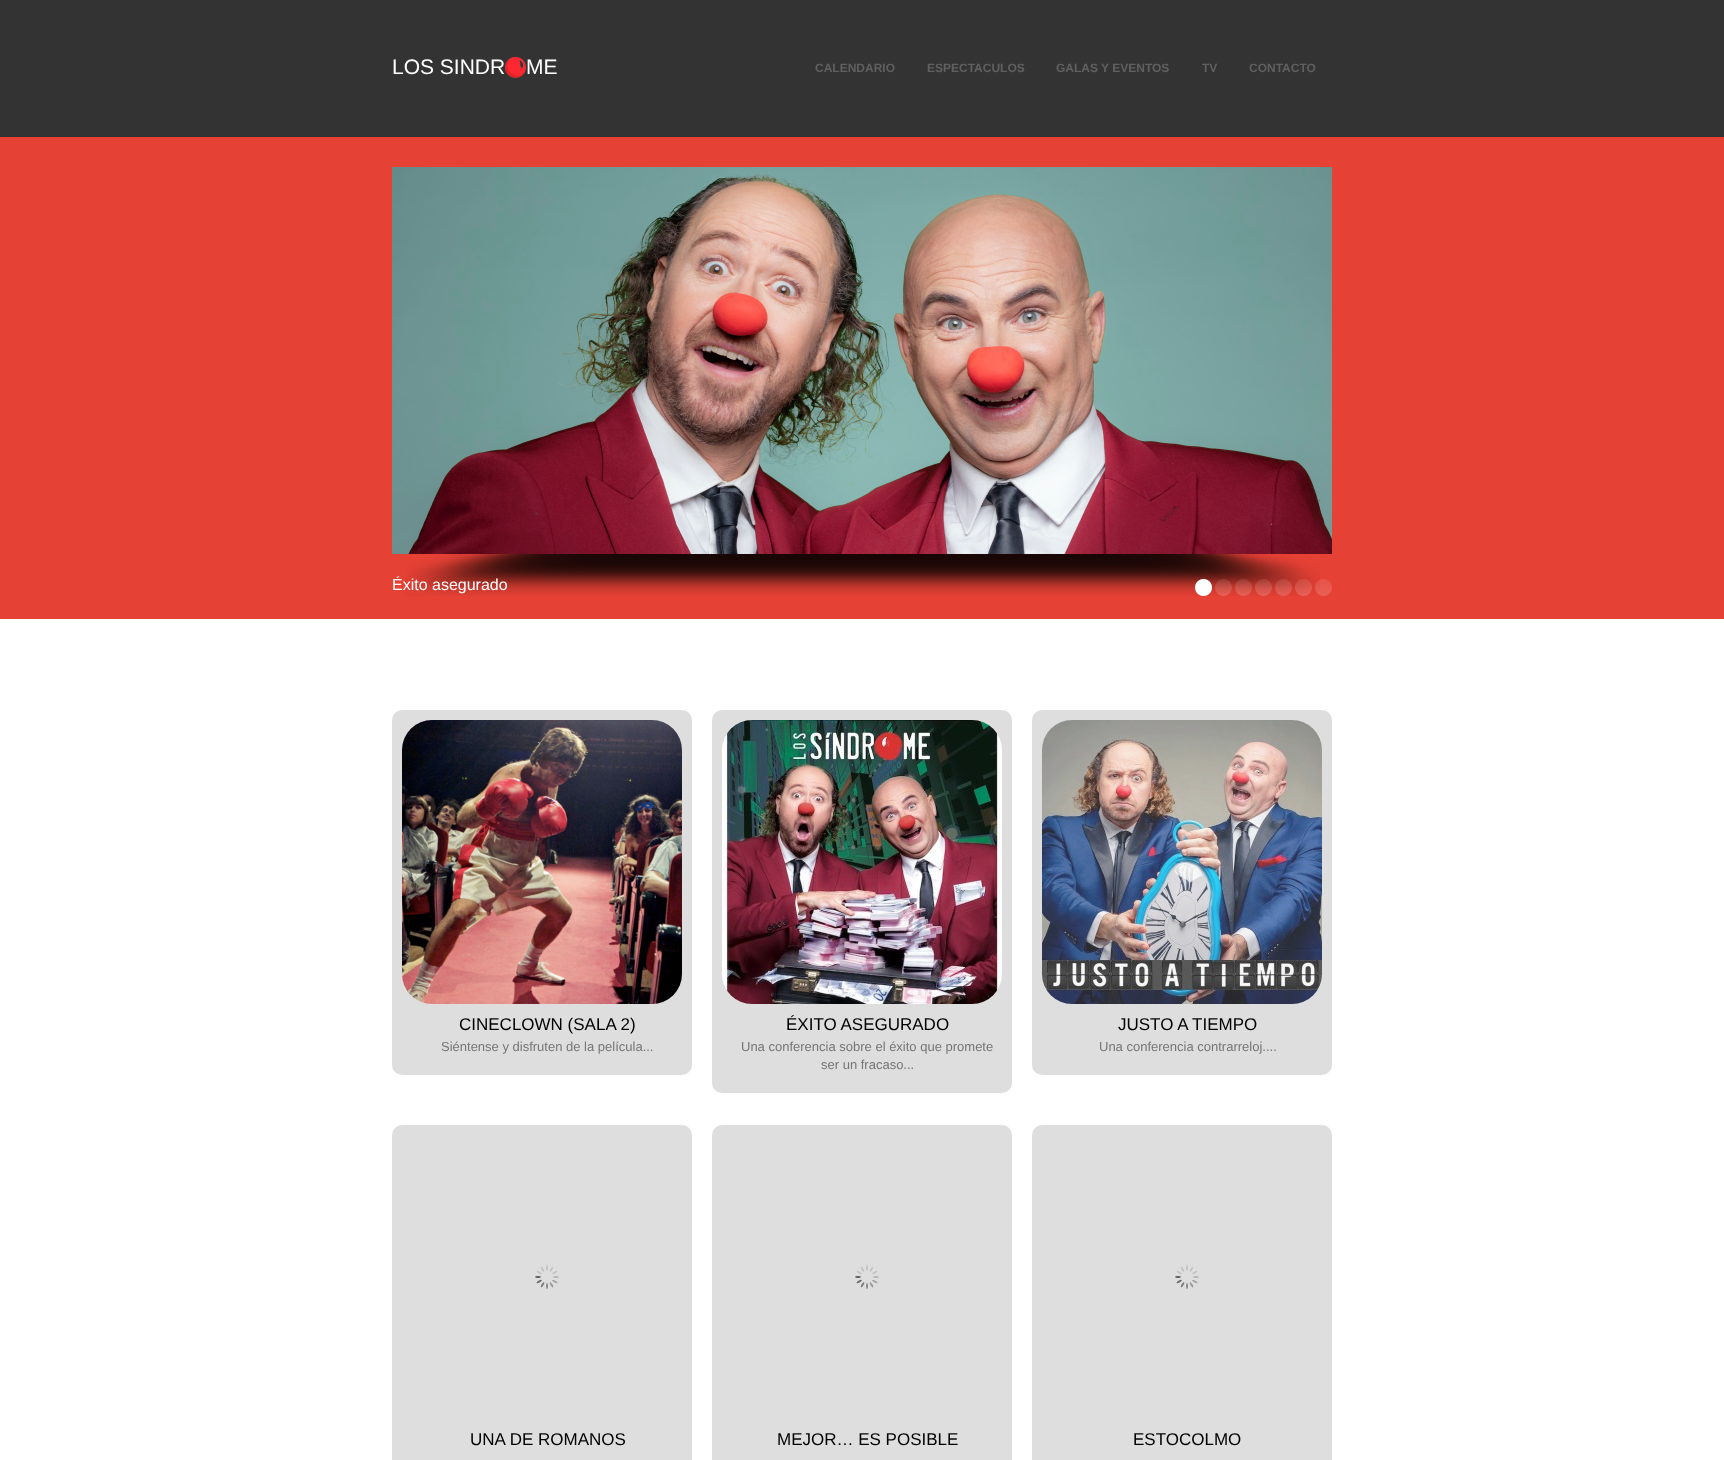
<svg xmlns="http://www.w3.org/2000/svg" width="1724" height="1460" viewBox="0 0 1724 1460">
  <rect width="100%" height="100%" fill="#fff"/>
  <path d="M0 0h1724v137H0z" fill="#333"/>
  <image x="505" y="57" width="21" height="21" href="img/1.png"/>
  <path d="M0 137h1724v482H0z" fill="#e64135"/>
  <image x="405" y="554" width="915" height="42" href="img/2.png"/>
  <image x="392" y="167" width="940" height="387" href="img/3.png"/>
  <image x="1195" y="579" width="17" height="17" href="img/4.png"/>
  <image x="1215" y="579" width="17" height="17" href="img/5.png"/>
  <image x="1235" y="579" width="17" height="17" href="img/6.png"/>
  <image x="1255" y="579" width="17" height="17" href="img/7.png"/>
  <image x="1275" y="579" width="17" height="17" href="img/8.png"/>
  <image x="1295" y="579" width="17" height="17" href="img/9.png"/>
  <image x="1315" y="579" width="17" height="17" href="img/10.png"/>
  <rect x="392" y="710" width="300" height="365" rx="10" fill="#dedede"/>
  <image x="402" y="720" width="280" height="284" href="img/11.png"/>
  <rect x="712" y="710" width="300" height="383" rx="10" fill="#dedede"/>
  <image x="722" y="720" width="280" height="284" href="img/12.png"/>
  <rect x="1032" y="710" width="300" height="365" rx="10" fill="#dedede"/>
  <image x="1175" y="850" width="24" height="24" href="img/13.png"/>
  <image x="1042" y="720" width="280" height="284" href="img/14.png"/>
  <rect x="392" y="1125" width="300" height="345" rx="10" fill="#dedede"/>
  <image x="535" y="1265" width="24" height="24" href="img/15.png"/>
  <rect x="712" y="1125" width="300" height="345" rx="10" fill="#dedede"/>
  <image x="855" y="1265" width="24" height="24" href="img/15.png"/>
  <rect x="1032" y="1125" width="300" height="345" rx="10" fill="#dedede"/>
  <image x="1175" y="1265" width="24" height="24" href="img/15.png"/>
  <g font-family="Liberation Sans" font-size="21" fill="#fff">
    <text x="392" y="74">LOS SINDR</text>
    <text x="526" y="74">ME</text>
  </g>
  <g font-family="Liberation Sans" font-size="12" font-weight="bold" fill="#606060">
    <text x="815" y="72">CALENDARIO</text>
    <text x="927" y="72">ESPECTACULOS</text>
    <text x="1056" y="72">GALAS Y EVENTOS</text>
    <text x="1202" y="72">TV</text>
    <text x="1249" y="72">CONTACTO</text>
  </g>
  <text x="392" y="590" font-family="Liberation Sans" font-size="16" fill="#fff">Éxito asegurado</text>
  <text x="459" y="1030" font-family="Liberation Sans" font-size="17" fill="#000">CINECLOWN (SALA 2)</text>
  <text x="441" y="1051" font-family="Liberation Sans" font-size="13" fill="#757575">Siéntense y disfruten de la película...</text>
  <text x="786" y="1030" font-family="Liberation Sans" font-size="17" fill="#000">ÉXITO ASEGURADO</text>
  <g font-family="Liberation Sans" font-size="13" fill="#757575">
    <text x="741" y="1051">Una conferencia sobre el éxito que promete</text>
    <text x="821" y="1069">ser un fracaso...</text>
  </g>
  <text x="1118" y="1030" font-family="Liberation Sans" font-size="17" fill="#000">JUSTO A TIEMPO</text>
  <text x="1099" y="1051" font-family="Liberation Sans" font-size="13" fill="#757575">Una conferencia contrarreloj....</text>
  <g font-family="Liberation Sans" font-size="17" fill="#000">
    <text x="470" y="1445">UNA DE ROMANOS</text>
    <text x="777" y="1445">MEJOR… ES POSIBLE</text>
    <text x="1133" y="1445">ESTOCOLMO</text>
  </g>
</svg>
